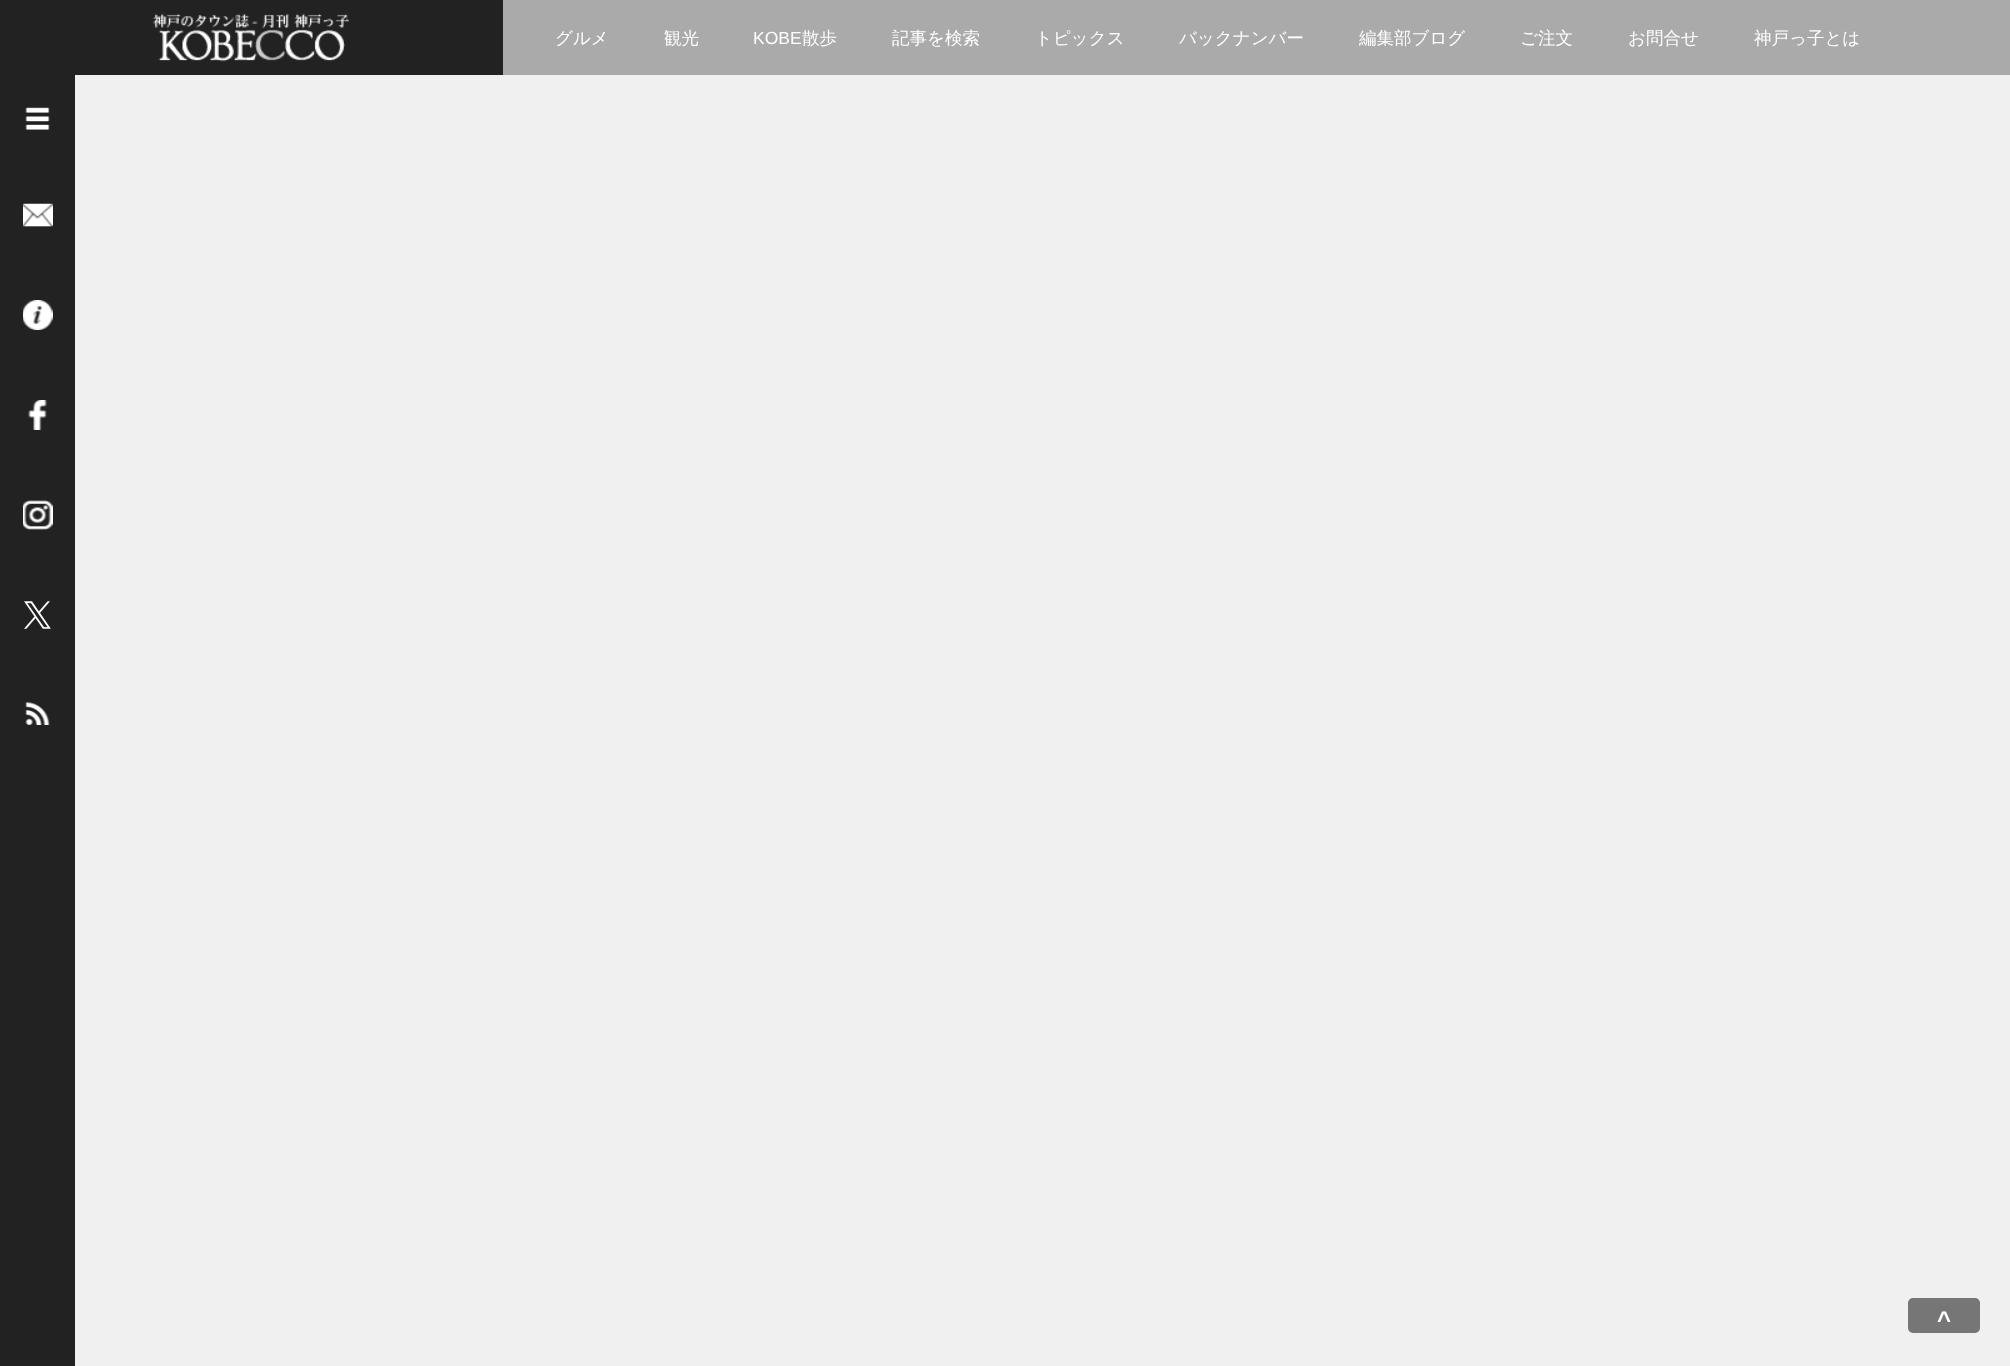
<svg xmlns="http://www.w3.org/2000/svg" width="2010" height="1366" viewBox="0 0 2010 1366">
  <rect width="100%" height="100%" fill="#f0f0f0"/>
  <path d="M0 0h503v75H0z" fill="#222"/>
  <image x="152" y="13" width="197" height="49" href="img/1.png"/>
  <path d="M503 0h1507v75H503z" fill="#aaa"/>
  <path d="M0 75h75v1291H0z" fill="#222"/>
  <image x="25" y="107" width="25" height="23" href="img/2.png"/>
  <image x="23" y="203" width="30" height="24" href="img/3.png"/>
  <image x="23" y="300" width="30" height="30" href="img/4.png"/>
  <image x="28" y="400" width="19" height="30" href="img/5.png"/>
  <image x="23" y="500" width="30" height="30" href="img/6.png"/>
  <image x="24" y="601" width="27" height="28" href="img/7.png"/>
  <image x="25" y="702" width="25" height="23" href="img/8.png"/>
  <rect x="1908" y="1298" width="72" height="35" rx="5" fill="#767676"/>
  <g font-family="WenQuanYi Zen Hei" font-size="17.5" font-weight="500" fill="#fff">
    <text x="555" y="44">グルメ</text>
    <text x="664" y="44">観光</text>
  </g>
  <text x="753" y="44" font-family="Liberation Sans" font-size="17.5" fill="#fff">KOBE</text>
  <g font-family="WenQuanYi Zen Hei" font-size="17.5" font-weight="500" fill="#fff">
    <text x="802" y="44">散歩</text>
    <text x="892" y="44">記事を検索</text>
    <text x="1035" y="44">トピックス</text>
    <text x="1179" y="44">バックナンバー</text>
    <text x="1359" y="44">編集部ブログ</text>
    <text x="1520" y="44">ご注文</text>
    <text x="1628" y="44">お問合せ</text>
    <text x="1754" y="44">神戸っ子とは</text>
  </g>
  <text x="1937" y="1328" font-family="Liberation Sans" font-size="24" font-weight="bold" fill="#fff">^</text>
</svg>
